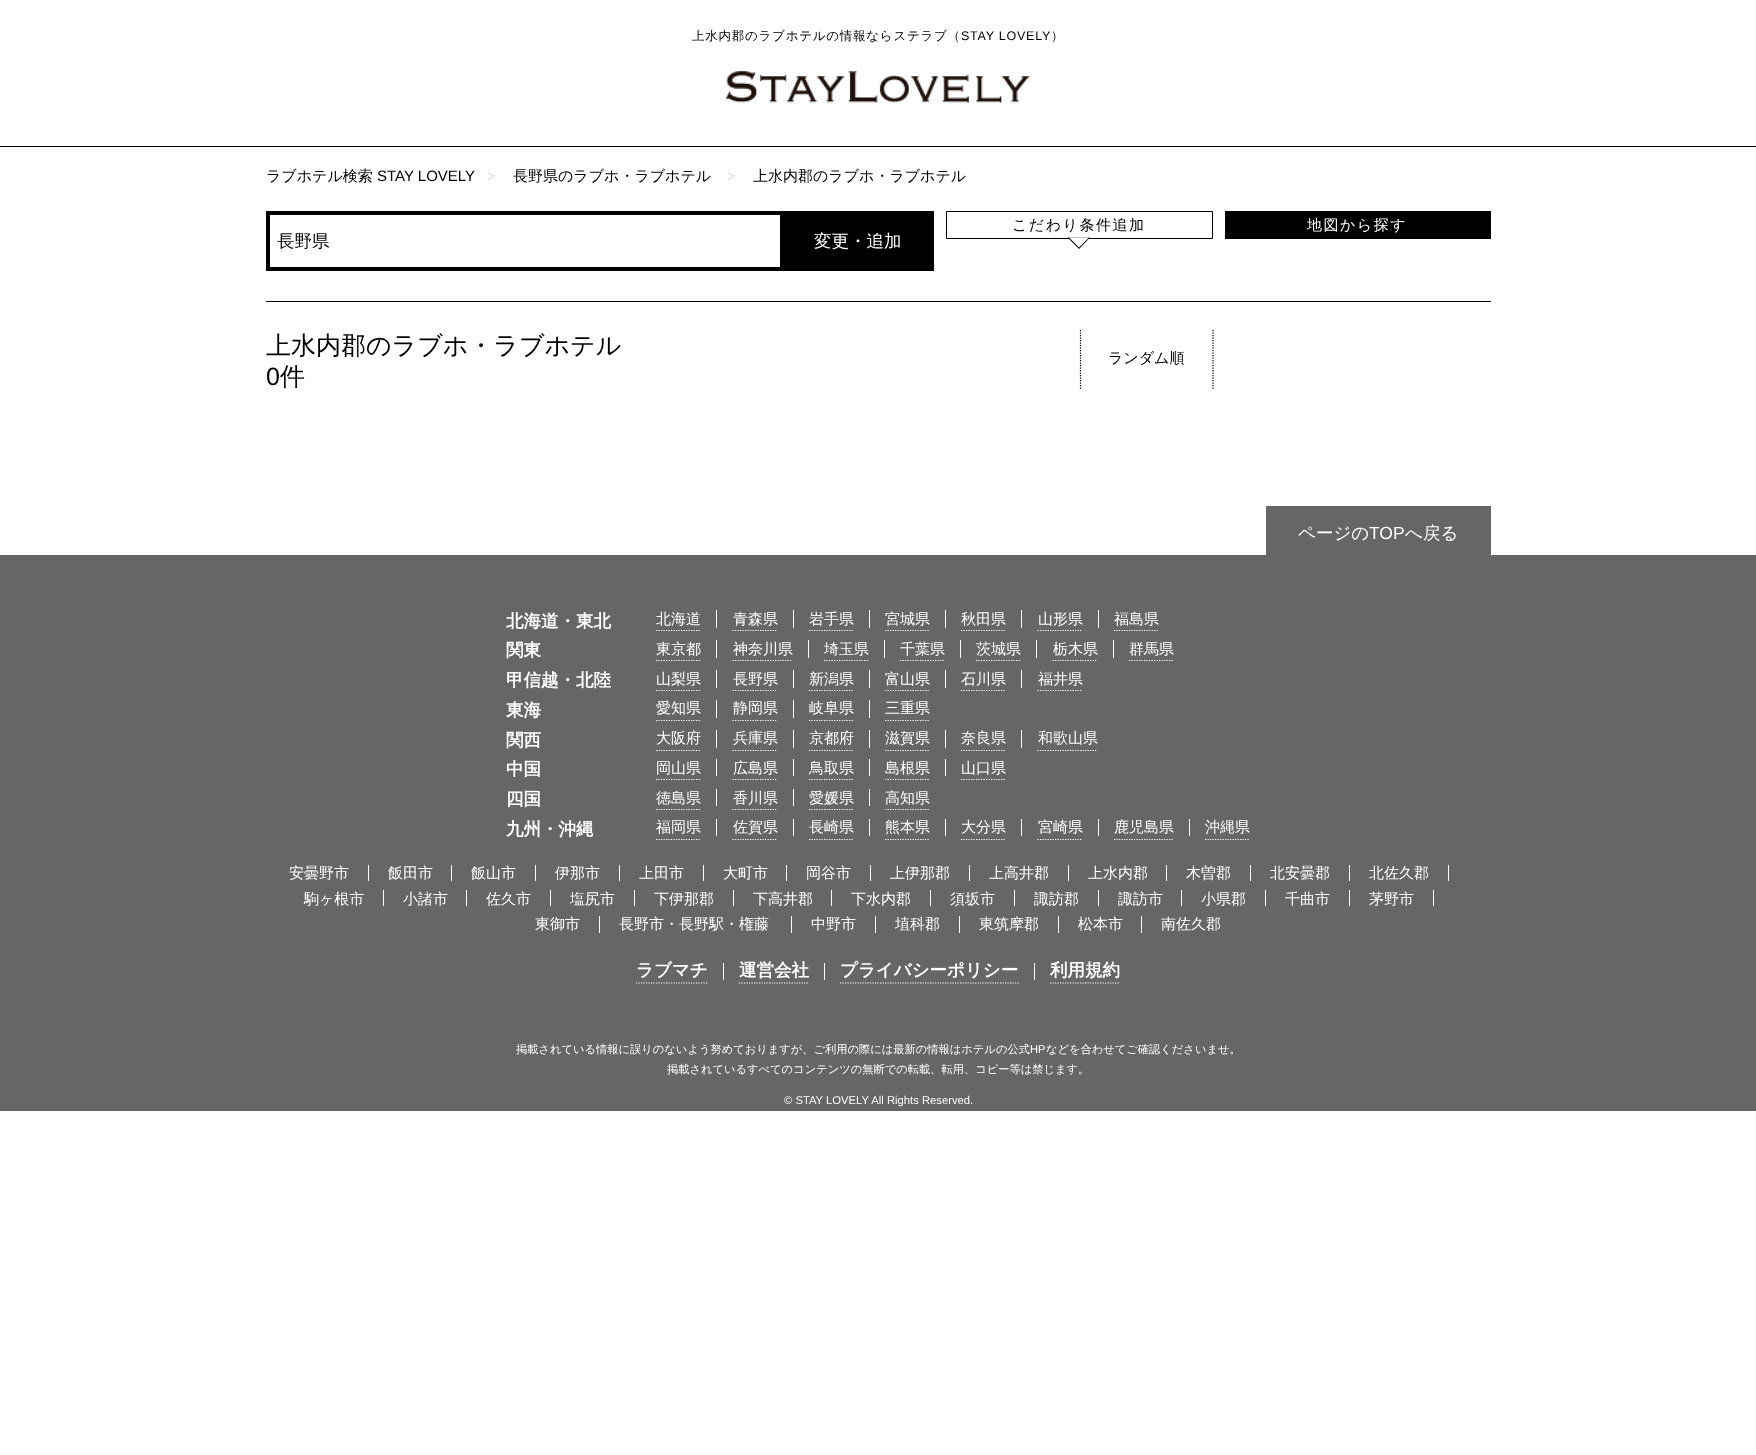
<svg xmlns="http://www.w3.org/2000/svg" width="1756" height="1455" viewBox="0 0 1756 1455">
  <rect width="100%" height="100%" fill="#fff"/>
  <path d="M0 146h1756v1H0z" fill="#000"/>
  <image x="726" y="71" width="304" height="32" href="img/1.png"/>
  <path d="M266 301h1225v1H266z" fill="#000"/>
  <path d="M946.5 211.5h266v27H946.5z" fill="none" stroke="#000"/>
  <path d="M1067.5 237.5H1090L1079 249Z" fill="#000"/>
  <path d="M1069 237.5H1089L1079 247.5Z" fill="#fff"/>
  <path d="M1225 211h266v28H1225z" fill="#000"/>
  <path d="M268 213h514v56H268z" fill="none" stroke="#000" stroke-width="4"/>
  <path d="M784 211h150v60H784z" fill="#000"/>
  <path d="M1080.5 330V390" fill="none" stroke="#000" stroke-width="1.2" stroke-dasharray="1.25 1.25"/>
  <path d="M1213 330V390" fill="none" stroke="#000" stroke-width="1.2" stroke-dasharray="1.25 1.25"/>
  <path d="M0 555h1756v556H0z" fill="#666"/>
  <path d="M1266 506h225v49H1266z" fill="#666"/>
  <path d="M656 630.5H701" fill="none" stroke="#fff" stroke-width="1.2" stroke-dasharray="1.25 1.25"/>
  <path d="M716 610h1v18H716z" fill="#fff"/>
  <path d="M732.5 630.5H777.5" fill="none" stroke="#fff" stroke-width="1.2" stroke-dasharray="1.25 1.25"/>
  <path d="M793 610h1v18H793z" fill="#fff"/>
  <path d="M809 630.5H854" fill="none" stroke="#fff" stroke-width="1.2" stroke-dasharray="1.25 1.25"/>
  <path d="M869 610h1v18H869z" fill="#fff"/>
  <path d="M885 630.5H930" fill="none" stroke="#fff" stroke-width="1.2" stroke-dasharray="1.25 1.25"/>
  <path d="M945 610h1v18H945z" fill="#fff"/>
  <path d="M961 630.5H1006" fill="none" stroke="#fff" stroke-width="1.2" stroke-dasharray="1.25 1.25"/>
  <path d="M1021 610h1v18H1021z" fill="#fff"/>
  <path d="M1037.5 630.5H1082.5" fill="none" stroke="#fff" stroke-width="1.2" stroke-dasharray="1.25 1.25"/>
  <path d="M1098 610h1v18H1098z" fill="#fff"/>
  <path d="M1114 630.5H1159" fill="none" stroke="#fff" stroke-width="1.2" stroke-dasharray="1.25 1.25"/>
  <path d="M656 660.5H701" fill="none" stroke="#fff" stroke-width="1.2" stroke-dasharray="1.25 1.25"/>
  <path d="M716 640h1v18H716z" fill="#fff"/>
  <path d="M732.5 660.5H792.5" fill="none" stroke="#fff" stroke-width="1.2" stroke-dasharray="1.25 1.25"/>
  <path d="M808 640h1v18H808z" fill="#fff"/>
  <path d="M824 660.5H869" fill="none" stroke="#fff" stroke-width="1.2" stroke-dasharray="1.25 1.25"/>
  <path d="M884 640h1v18H884z" fill="#fff"/>
  <path d="M900 660.5H945" fill="none" stroke="#fff" stroke-width="1.2" stroke-dasharray="1.25 1.25"/>
  <path d="M960 640h1v18H960z" fill="#fff"/>
  <path d="M976 660.5H1021" fill="none" stroke="#fff" stroke-width="1.2" stroke-dasharray="1.25 1.25"/>
  <path d="M1036 640h1v18H1036z" fill="#fff"/>
  <path d="M1052.5 660.5H1097.5" fill="none" stroke="#fff" stroke-width="1.2" stroke-dasharray="1.25 1.25"/>
  <path d="M1113 640h1v18H1113z" fill="#fff"/>
  <path d="M1129 660.5H1174" fill="none" stroke="#fff" stroke-width="1.2" stroke-dasharray="1.25 1.25"/>
  <path d="M656 690.5H701" fill="none" stroke="#fff" stroke-width="1.2" stroke-dasharray="1.25 1.25"/>
  <path d="M716 670h1v18H716z" fill="#fff"/>
  <path d="M732.5 690.5H777.5" fill="none" stroke="#fff" stroke-width="1.2" stroke-dasharray="1.25 1.25"/>
  <path d="M793 670h1v18H793z" fill="#fff"/>
  <path d="M809 690.5H854" fill="none" stroke="#fff" stroke-width="1.2" stroke-dasharray="1.25 1.25"/>
  <path d="M869 670h1v18H869z" fill="#fff"/>
  <path d="M885 690.5H930" fill="none" stroke="#fff" stroke-width="1.2" stroke-dasharray="1.25 1.25"/>
  <path d="M945 670h1v18H945z" fill="#fff"/>
  <path d="M961 690.5H1006" fill="none" stroke="#fff" stroke-width="1.2" stroke-dasharray="1.25 1.25"/>
  <path d="M1021 670h1v18H1021z" fill="#fff"/>
  <path d="M1037.5 690.5H1082.5" fill="none" stroke="#fff" stroke-width="1.2" stroke-dasharray="1.25 1.25"/>
  <path d="M656 720.5H701" fill="none" stroke="#fff" stroke-width="1.2" stroke-dasharray="1.25 1.25"/>
  <path d="M716 700h1v18H716z" fill="#fff"/>
  <path d="M732.5 720.5H777.5" fill="none" stroke="#fff" stroke-width="1.2" stroke-dasharray="1.25 1.25"/>
  <path d="M793 700h1v18H793z" fill="#fff"/>
  <path d="M809 720.5H854" fill="none" stroke="#fff" stroke-width="1.2" stroke-dasharray="1.25 1.25"/>
  <path d="M869 700h1v18H869z" fill="#fff"/>
  <path d="M885 720.5H930" fill="none" stroke="#fff" stroke-width="1.2" stroke-dasharray="1.25 1.25"/>
  <path d="M656 750.5H701" fill="none" stroke="#fff" stroke-width="1.2" stroke-dasharray="1.25 1.25"/>
  <path d="M716 730h1v18H716z" fill="#fff"/>
  <path d="M732.5 750.5H777.5" fill="none" stroke="#fff" stroke-width="1.2" stroke-dasharray="1.25 1.25"/>
  <path d="M793 730h1v18H793z" fill="#fff"/>
  <path d="M809 750.5H854" fill="none" stroke="#fff" stroke-width="1.2" stroke-dasharray="1.25 1.25"/>
  <path d="M869 730h1v18H869z" fill="#fff"/>
  <path d="M885 750.5H930" fill="none" stroke="#fff" stroke-width="1.2" stroke-dasharray="1.25 1.25"/>
  <path d="M945 730h1v18H945z" fill="#fff"/>
  <path d="M961 750.5H1006" fill="none" stroke="#fff" stroke-width="1.2" stroke-dasharray="1.25 1.25"/>
  <path d="M1021 730h1v18H1021z" fill="#fff"/>
  <path d="M1037.5 750.5H1097.5" fill="none" stroke="#fff" stroke-width="1.2" stroke-dasharray="1.25 1.25"/>
  <path d="M656 779.5H701" fill="none" stroke="#fff" stroke-width="1.2" stroke-dasharray="1.25 1.25"/>
  <path d="M716 759h1v17H716z" fill="#fff"/>
  <path d="M732.5 779.5H777.5" fill="none" stroke="#fff" stroke-width="1.2" stroke-dasharray="1.25 1.25"/>
  <path d="M793 759h1v17H793z" fill="#fff"/>
  <path d="M809 779.5H854" fill="none" stroke="#fff" stroke-width="1.2" stroke-dasharray="1.25 1.25"/>
  <path d="M869 759h1v17H869z" fill="#fff"/>
  <path d="M885 779.5H930" fill="none" stroke="#fff" stroke-width="1.2" stroke-dasharray="1.25 1.25"/>
  <path d="M945 759h1v17H945z" fill="#fff"/>
  <path d="M961 779.5H1006" fill="none" stroke="#fff" stroke-width="1.2" stroke-dasharray="1.25 1.25"/>
  <path d="M656 809.5H701" fill="none" stroke="#fff" stroke-width="1.2" stroke-dasharray="1.25 1.25"/>
  <path d="M716 789h1v17H716z" fill="#fff"/>
  <path d="M732.5 809.5H777.5" fill="none" stroke="#fff" stroke-width="1.2" stroke-dasharray="1.25 1.25"/>
  <path d="M793 789h1v17H793z" fill="#fff"/>
  <path d="M809 809.5H854" fill="none" stroke="#fff" stroke-width="1.2" stroke-dasharray="1.25 1.25"/>
  <path d="M869 789h1v17H869z" fill="#fff"/>
  <path d="M885 809.5H930" fill="none" stroke="#fff" stroke-width="1.2" stroke-dasharray="1.25 1.25"/>
  <path d="M656 839.5H701" fill="none" stroke="#fff" stroke-width="1.2" stroke-dasharray="1.25 1.25"/>
  <path d="M716 819h1v17H716z" fill="#fff"/>
  <path d="M732.5 839.5H777.5" fill="none" stroke="#fff" stroke-width="1.2" stroke-dasharray="1.25 1.25"/>
  <path d="M793 819h1v17H793z" fill="#fff"/>
  <path d="M809 839.5H854" fill="none" stroke="#fff" stroke-width="1.2" stroke-dasharray="1.25 1.25"/>
  <path d="M869 819h1v17H869z" fill="#fff"/>
  <path d="M885 839.5H930" fill="none" stroke="#fff" stroke-width="1.2" stroke-dasharray="1.25 1.25"/>
  <path d="M945 819h1v17H945z" fill="#fff"/>
  <path d="M961 839.5H1006" fill="none" stroke="#fff" stroke-width="1.2" stroke-dasharray="1.25 1.25"/>
  <path d="M1021 819h1v17H1021z" fill="#fff"/>
  <path d="M1037.5 839.5H1082.5" fill="none" stroke="#fff" stroke-width="1.2" stroke-dasharray="1.25 1.25"/>
  <path d="M1098 819h1v17H1098z" fill="#fff"/>
  <path d="M1114 839.5H1174" fill="none" stroke="#fff" stroke-width="1.2" stroke-dasharray="1.25 1.25"/>
  <path d="M1189 819h1v17H1189z" fill="#fff"/>
  <path d="M1205 839.5H1250" fill="none" stroke="#fff" stroke-width="1.2" stroke-dasharray="1.25 1.25"/>
  <path d="M368 865h1v16H368z" fill="#fff"/>
  <path d="M451 865h1v16H451z" fill="#fff"/>
  <path d="M535 865h1v16H535z" fill="#fff"/>
  <path d="M619 865h1v16H619z" fill="#fff"/>
  <path d="M703 865h1v16H703z" fill="#fff"/>
  <path d="M786 865h1v16H786z" fill="#fff"/>
  <path d="M870 865h1v16H870z" fill="#fff"/>
  <path d="M969 865h1v16H969z" fill="#fff"/>
  <path d="M1068 865h1v16H1068z" fill="#fff"/>
  <path d="M1166 865h1v16H1166z" fill="#fff"/>
  <path d="M1250 865h1v16H1250z" fill="#fff"/>
  <path d="M1349 865h1v16H1349z" fill="#fff"/>
  <path d="M1448 865h1v16H1448z" fill="#fff"/>
  <path d="M383 890h1v16H383z" fill="#fff"/>
  <path d="M466 890h1v16H466z" fill="#fff"/>
  <path d="M550 890h1v16H550z" fill="#fff"/>
  <path d="M634 890h1v16H634z" fill="#fff"/>
  <path d="M733 890h1v16H733z" fill="#fff"/>
  <path d="M831 890h1v16H831z" fill="#fff"/>
  <path d="M930 890h1v16H930z" fill="#fff"/>
  <path d="M1014 890h1v16H1014z" fill="#fff"/>
  <path d="M1098 890h1v16H1098z" fill="#fff"/>
  <path d="M1181 890h1v16H1181z" fill="#fff"/>
  <path d="M1265 890h1v16H1265z" fill="#fff"/>
  <path d="M1349 890h1v16H1349z" fill="#fff"/>
  <path d="M1433 890h1v16H1433z" fill="#fff"/>
  <path d="M599 916h1v17H599z" fill="#fff"/>
  <path d="M791 916h1v17H791z" fill="#fff"/>
  <path d="M875 916h1v17H875z" fill="#fff"/>
  <path d="M959 916h1v17H959z" fill="#fff"/>
  <path d="M1058 916h1v17H1058z" fill="#fff"/>
  <path d="M1141 916h1v17H1141z" fill="#fff"/>
  <path d="M636 983H707.5" fill="none" stroke="#fff" stroke-width="1.2" stroke-dasharray="1.25 1.25"/>
  <path d="M723 963h1v17H723z" fill="#fff"/>
  <path d="M739 983H809" fill="none" stroke="#fff" stroke-width="1.2" stroke-dasharray="1.25 1.25"/>
  <path d="M824 963h1v17H824z" fill="#fff"/>
  <path d="M840 983H1019" fill="none" stroke="#fff" stroke-width="1.2" stroke-dasharray="1.25 1.25"/>
  <path d="M1034 963h1v17H1034z" fill="#fff"/>
  <path d="M1050 983H1120" fill="none" stroke="#fff" stroke-width="1.2" stroke-dasharray="1.25 1.25"/>
  <text x="692" y="40" font-family="WenQuanYi Zen Hei" font-size="12.5" font-weight="500" letter-spacing="0.75" fill="#000">上水内郡のラブホテルの情報ならステラブ（</text>
  <text x="961" y="40" font-family="Liberation Sans" font-size="12.5" letter-spacing="0.75" fill="#000">STAY LOVELY</text>
  <text x="1051" y="40" font-family="WenQuanYi Zen Hei" font-size="12.5" font-weight="500" letter-spacing="0.75" fill="#000">）</text>
  <text x="266" y="181" font-family="WenQuanYi Zen Hei" font-size="15" font-weight="500" fill="#000">ラブホテル検索</text>
  <text x="377" y="181" font-family="Liberation Sans" font-size="15" fill="#000">STAY LOVELY</text>
  <text x="487" y="181" font-family="Liberation Sans" font-size="15" fill="#dedede">&gt;</text>
  <text x="513" y="181" font-family="WenQuanYi Zen Hei" font-size="15" font-weight="500" fill="#000">長野県のラブホ・ラブホテル</text>
  <text x="727" y="181" font-family="Liberation Sans" font-size="15" fill="#dedede">&gt;</text>
  <text x="753" y="181" font-family="WenQuanYi Zen Hei" font-size="15" font-weight="500" fill="#000">上水内郡のラブホ・ラブホテル</text>
  <text x="1012" y="230" font-family="WenQuanYi Zen Hei" font-size="15" font-weight="500" letter-spacing="1.5" fill="#000">こだわり条件追加</text>
  <text x="1307" y="230" font-family="WenQuanYi Zen Hei" font-size="15" font-weight="500" letter-spacing="1.5" fill="#fff">地図から探す</text>
  <text x="277" y="247" font-family="WenQuanYi Zen Hei" font-size="17.5" font-weight="500" fill="#000">長野県</text>
  <text x="814" y="247" font-family="WenQuanYi Zen Hei" font-size="17.5" font-weight="500" fill="#fff">変更・追加</text>
  <text x="266" y="354" font-family="WenQuanYi Zen Hei" font-size="25" font-weight="500" fill="#000">上水内郡のラブホ・ラブホテル</text>
  <text x="266" y="385" font-family="Liberation Sans" font-size="25" fill="#000">0</text>
  <text x="280" y="385" font-family="WenQuanYi Zen Hei" font-size="25" font-weight="500" fill="#000">件</text>
  <text x="1108" y="363" font-family="WenQuanYi Zen Hei" font-size="15" font-weight="500" fill="#000">ランダム順</text>
  <text x="1298" y="539" font-family="WenQuanYi Zen Hei" font-size="17.5" font-weight="500" fill="#fff">ページの</text>
  <text x="1369" y="539" font-family="Liberation Sans" font-size="17.5" fill="#fff">TOP</text>
  <text x="1405" y="539" font-family="WenQuanYi Zen Hei" font-size="17.5" font-weight="500" fill="#fff">へ戻る</text>
  <text x="506" y="627" font-family="WenQuanYi Zen Hei" font-size="17.5" font-weight="bold" fill="#fff">北海道・東北</text>
  <g font-family="WenQuanYi Zen Hei" font-size="15" font-weight="500" fill="#fff">
    <text x="656" y="624">北海道</text>
    <text x="733" y="624">青森県</text>
    <text x="809" y="624">岩手県</text>
    <text x="885" y="624">宮城県</text>
    <text x="961" y="624">秋田県</text>
    <text x="1038" y="624">山形県</text>
    <text x="1114" y="624">福島県</text>
  </g>
  <text x="506" y="656" font-family="WenQuanYi Zen Hei" font-size="17.5" font-weight="bold" fill="#fff">関東</text>
  <g font-family="WenQuanYi Zen Hei" font-size="15" font-weight="500" fill="#fff">
    <text x="656" y="654">東京都</text>
    <text x="733" y="654">神奈川県</text>
    <text x="824" y="654">埼玉県</text>
    <text x="900" y="654">千葉県</text>
    <text x="976" y="654">茨城県</text>
    <text x="1053" y="654">栃木県</text>
    <text x="1129" y="654">群馬県</text>
  </g>
  <text x="506" y="686" font-family="WenQuanYi Zen Hei" font-size="17.5" font-weight="bold" fill="#fff">甲信越・北陸</text>
  <g font-family="WenQuanYi Zen Hei" font-size="15" font-weight="500" fill="#fff">
    <text x="656" y="684">山梨県</text>
    <text x="733" y="684">長野県</text>
    <text x="809" y="684">新潟県</text>
    <text x="885" y="684">富山県</text>
    <text x="961" y="684">石川県</text>
    <text x="1038" y="684">福井県</text>
  </g>
  <text x="506" y="716" font-family="WenQuanYi Zen Hei" font-size="17.5" font-weight="bold" fill="#fff">東海</text>
  <g font-family="WenQuanYi Zen Hei" font-size="15" font-weight="500" fill="#fff">
    <text x="656" y="713">愛知県</text>
    <text x="733" y="713">静岡県</text>
    <text x="809" y="713">岐阜県</text>
    <text x="885" y="713">三重県</text>
  </g>
  <text x="506" y="746" font-family="WenQuanYi Zen Hei" font-size="17.5" font-weight="bold" fill="#fff">関西</text>
  <g font-family="WenQuanYi Zen Hei" font-size="15" font-weight="500" fill="#fff">
    <text x="656" y="743">大阪府</text>
    <text x="733" y="743">兵庫県</text>
    <text x="809" y="743">京都府</text>
    <text x="885" y="743">滋賀県</text>
    <text x="961" y="743">奈良県</text>
    <text x="1038" y="743">和歌山県</text>
  </g>
  <text x="506" y="775" font-family="WenQuanYi Zen Hei" font-size="17.5" font-weight="bold" fill="#fff">中国</text>
  <g font-family="WenQuanYi Zen Hei" font-size="15" font-weight="500" fill="#fff">
    <text x="656" y="773">岡山県</text>
    <text x="733" y="773">広島県</text>
    <text x="809" y="773">鳥取県</text>
    <text x="885" y="773">島根県</text>
    <text x="961" y="773">山口県</text>
  </g>
  <text x="506" y="805" font-family="WenQuanYi Zen Hei" font-size="17.5" font-weight="bold" fill="#fff">四国</text>
  <g font-family="WenQuanYi Zen Hei" font-size="15" font-weight="500" fill="#fff">
    <text x="656" y="803">徳島県</text>
    <text x="733" y="803">香川県</text>
    <text x="809" y="803">愛媛県</text>
    <text x="885" y="803">高知県</text>
  </g>
  <text x="506" y="835" font-family="WenQuanYi Zen Hei" font-size="17.5" font-weight="bold" fill="#fff">九州・沖縄</text>
  <g font-family="WenQuanYi Zen Hei" font-size="15" font-weight="500" fill="#fff">
    <text x="656" y="832">福岡県</text>
    <text x="733" y="832">佐賀県</text>
    <text x="809" y="832">長崎県</text>
    <text x="885" y="832">熊本県</text>
    <text x="961" y="832">大分県</text>
    <text x="1038" y="832">宮崎県</text>
    <text x="1114" y="832">鹿児島県</text>
    <text x="1205" y="832">沖縄県</text>
    <text x="289" y="878">安曇野市</text>
    <text x="388" y="878">飯田市</text>
    <text x="471" y="878">飯山市</text>
    <text x="555" y="878">伊那市</text>
    <text x="639" y="878">上田市</text>
    <text x="723" y="878">大町市</text>
    <text x="806" y="878">岡谷市</text>
    <text x="890" y="878">上伊那郡</text>
    <text x="989" y="878">上高井郡</text>
    <text x="1088" y="878">上水内郡</text>
    <text x="1186" y="878">木曽郡</text>
    <text x="1270" y="878">北安曇郡</text>
    <text x="1369" y="878">北佐久郡</text>
    <text x="304" y="904">駒ヶ根市</text>
    <text x="403" y="904">小諸市</text>
    <text x="486" y="904">佐久市</text>
    <text x="570" y="904">塩尻市</text>
    <text x="654" y="904">下伊那郡</text>
    <text x="753" y="904">下高井郡</text>
    <text x="851" y="904">下水内郡</text>
    <text x="950" y="904">須坂市</text>
    <text x="1034" y="904">諏訪郡</text>
    <text x="1118" y="904">諏訪市</text>
    <text x="1201" y="904">小県郡</text>
    <text x="1285" y="904">千曲市</text>
    <text x="1369" y="904">茅野市</text>
    <text x="535" y="929">東御市</text>
    <text x="619" y="929">長野市・長野駅・権藤</text>
    <text x="811" y="929">中野市</text>
    <text x="895" y="929">埴科郡</text>
    <text x="979" y="929">東筑摩郡</text>
    <text x="1078" y="929">松本市</text>
    <text x="1161" y="929">南佐久郡</text>
  </g>
  <g font-family="WenQuanYi Zen Hei" font-size="17.5" font-weight="bold" fill="#fff">
    <text x="636" y="976">ラブマチ</text>
    <text x="739" y="976">運営会社</text>
    <text x="840" y="976">プライバシーポリシー</text>
    <text x="1050" y="976">利用規約</text>
  </g>
  <text x="516" y="1053" font-family="WenQuanYi Zen Hei" font-size="11.25" font-weight="500" fill="#fff">掲載されている情報に誤りのないよう努めておりますが、ご利用の際には最新の情報はホテルの公式</text>
  <text x="1030" y="1053" font-family="Liberation Sans" font-size="11.25" fill="#fff">HP</text>
  <g font-family="WenQuanYi Zen Hei" font-size="11.25" font-weight="500" fill="#fff">
    <text x="1046" y="1053">などを合わせてご確認くださいませ。</text>
    <text x="667" y="1073">掲載されているすべてのコンテンツの無断での転載、転用、コピー等は禁じます。</text>
  </g>
  <text x="784" y="1104" font-family="Liberation Sans" font-size="11.25" fill="#fff">© STAY LOVELY All Rights Reserved.</text>
</svg>
